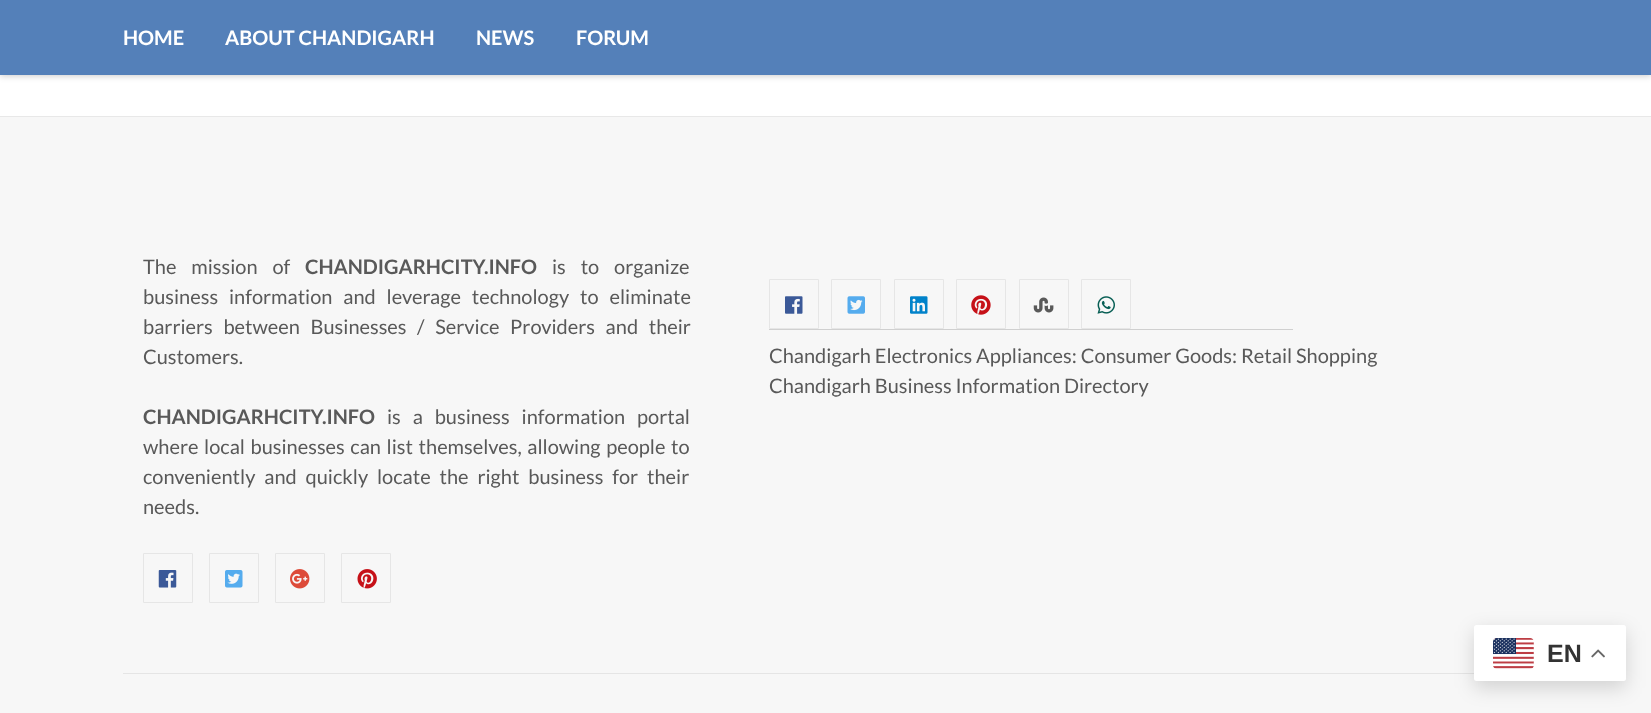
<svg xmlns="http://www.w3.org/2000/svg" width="1651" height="713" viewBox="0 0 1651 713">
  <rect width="100%" height="100%" fill="#fff"/>
  <path d="M0 1h1651v75H0z" fill="#00000033" filter="blur(3px)"/>
  <path d="M0 0h1651v75H0z" fill="#5480b9"/>
  <path d="M0 117h1651v596H0z" fill="#f7f7f7"/>
  <path d="M0 116h1651v1H0z" fill="#e8e8e8"/>
  <path d="M143.5 553.5h49v49H143.5z" fill="none" stroke="#e6e6e6"/>
  <image x="158" y="570" width="19" height="18" href="img/1.png"/>
  <path d="M209.5 553.5h49v49H209.5z" fill="none" stroke="#e6e6e6"/>
  <image x="225" y="570" width="18" height="18" href="img/2.png"/>
  <path d="M275.5 553.5h49v49H275.5z" fill="none" stroke="#e6e6e6"/>
  <image x="290" y="569" width="20" height="20" href="img/3.png"/>
  <path d="M341.5 553.5h49v49H341.5z" fill="none" stroke="#e6e6e6"/>
  <image x="357" y="569" width="20" height="20" href="img/4.png"/>
  <path d="M769.5 279.5h49v49H769.5z" fill="none" stroke="#e6e6e6"/>
  <image x="785" y="296" width="18" height="18" href="img/5.png"/>
  <path d="M831.5 279.5h49v49H831.5z" fill="none" stroke="#e6e6e6"/>
  <image x="847" y="296" width="18" height="18" href="img/6.png"/>
  <path d="M894.5 279.5h49v49H894.5z" fill="none" stroke="#e6e6e6"/>
  <image x="910" y="296" width="18" height="18" href="img/7.png"/>
  <path d="M956.5 279.5h49v49H956.5z" fill="none" stroke="#e6e6e6"/>
  <image x="971" y="295" width="20" height="20" href="img/8.png"/>
  <path d="M1019.5 279.5h49v49H1019.5z" fill="none" stroke="#e6e6e6"/>
  <image x="1033" y="297" width="21" height="16" href="img/9.png"/>
  <path d="M1081.5 279.5h49v49H1081.5z" fill="none" stroke="#e6e6e6"/>
  <image x="1097" y="296" width="18" height="18" href="img/10.png"/>
  <path d="M769 329h524v1H769z" fill="#d0d0d0"/>
  <path d="M123 673h1351v1H123z" fill="#e5e5e5"/>
  <rect x="1474" y="631" width="152" height="57" rx="2.5" fill="#00000026" filter="blur(9.5px)"/>
  <rect x="1474" y="625" width="152" height="56" rx="2.5" fill="#fff"/>
  <image x="1493" y="638" width="41" height="31" href="img/11.png"/>
  <image x="1591" y="649" width="14" height="9" href="img/12.png"/>
  <g font-family="Lato" font-size="20" font-weight="bold" fill="#fff">
    <text x="123" y="45">HOME</text>
    <text x="225" y="45">ABOUT CHANDIGARH</text>
    <text x="476" y="45">NEWS</text>
    <text x="576" y="45">FORUM</text>
  </g>
  <text x="143" y="274" word-spacing="11" font-family="Lato" font-size="20" fill="#595959">The mission of</text>
  <text x="305" y="274" font-family="Lato" font-size="20" font-weight="bold" fill="#595959">CHANDIGARHCITY.INFO</text>
  <g font-family="Lato" font-size="20" fill="#595959">
    <text x="552" y="274" word-spacing="11">is to organize</text>
    <text x="143" y="304" word-spacing="7">business information and leverage technology to eliminate</text>
    <text x="143" y="334" word-spacing="6.75">barriers between Businesses / Service Providers and their</text>
    <text x="143" y="364">Customers.</text>
  </g>
  <text x="143" y="424" font-family="Lato" font-size="20" font-weight="bold" fill="#595959">CHANDIGARHCITY.INFO</text>
  <g font-family="Lato" font-size="20" fill="#595959">
    <text x="387" y="424" word-spacing="8">is a business information portal</text>
    <text x="143" y="454" word-spacing="1.75">where local businesses can list themselves, allowing people to</text>
    <text x="143" y="484" word-spacing="5">conveniently and quickly locate the right business for their</text>
    <text x="143" y="514">needs.</text>
    <text x="769" y="363">Chandigarh Electronics Appliances: Consumer Goods: Retail Shopping</text>
    <text x="769" y="393">Chandigarh Business Information Directory</text>
  </g>
  <text x="1547" y="662" font-family="Liberation Sans" font-size="25" font-weight="bold" fill="#333">EN</text>
</svg>
